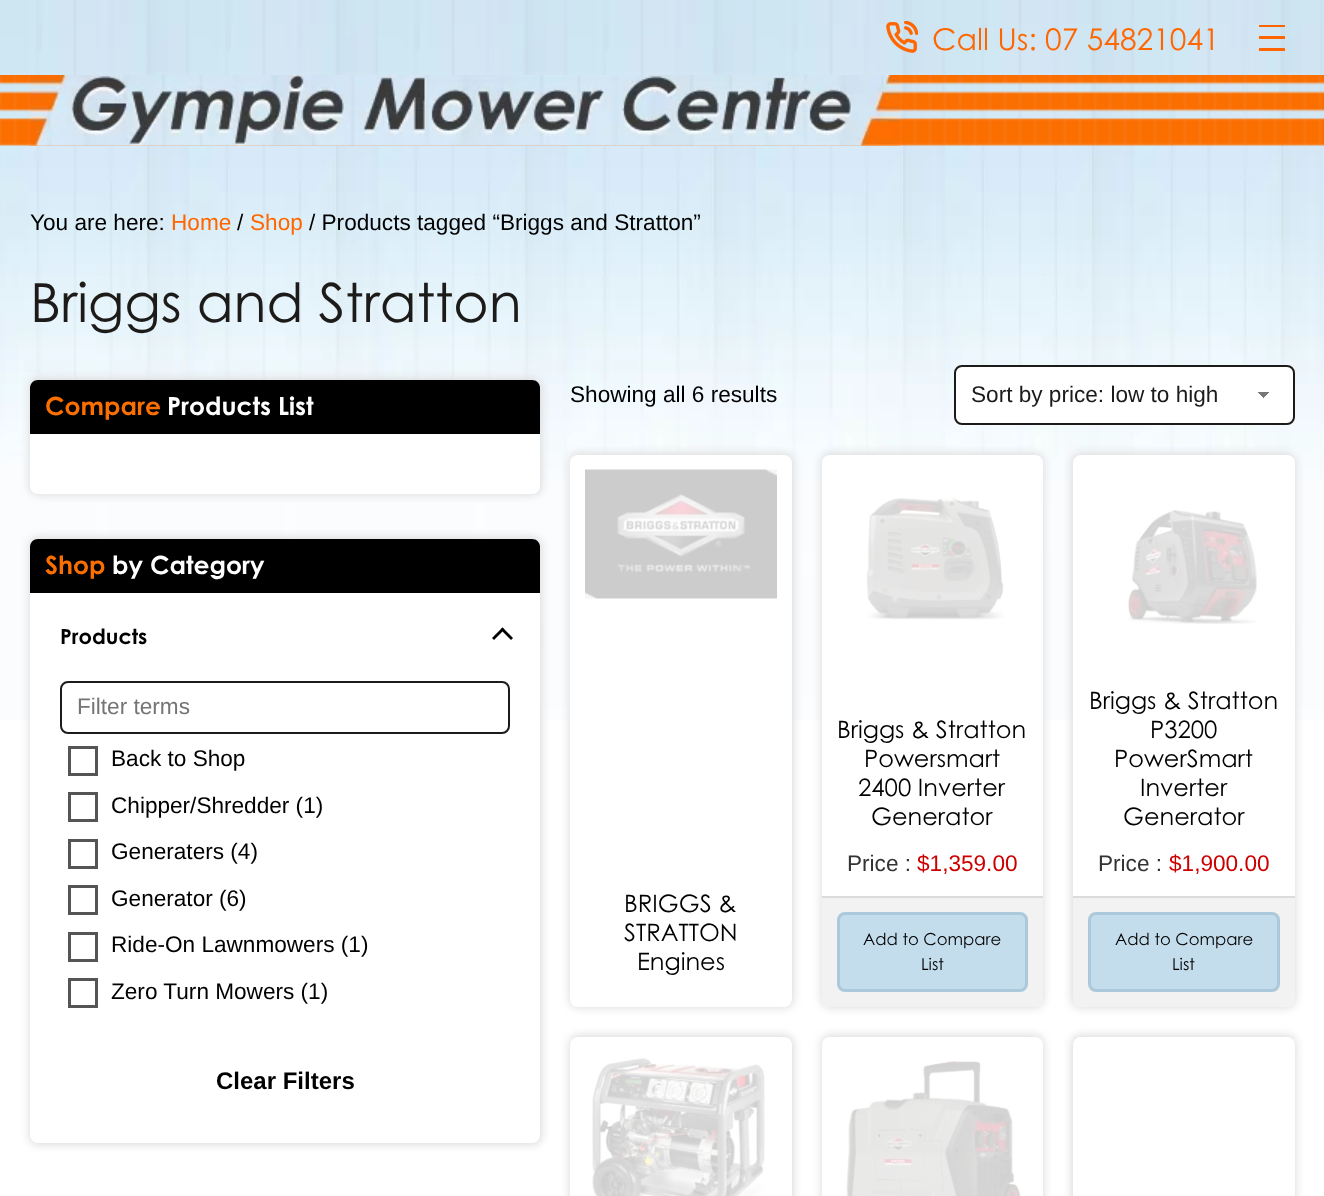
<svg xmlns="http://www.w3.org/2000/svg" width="1324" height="1196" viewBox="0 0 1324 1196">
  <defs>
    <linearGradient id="g1" gradientUnits="userSpaceOnUse" x1="1263" y1="391" x2="1271" y2="398"><stop offset="0.5" stop-color="#777"/><stop offset="0.5" stop-color="#fff"/></linearGradient>
    <linearGradient id="g2" gradientUnits="userSpaceOnUse" x1="1256" y1="398" x2="1263" y2="391"><stop offset="0.5" stop-color="#fff"/><stop offset="0.5" stop-color="#777"/></linearGradient>
  </defs>
  <rect width="100%" height="100%" fill="#fff"/>
  <image x="0" y="0" width="1324" height="720" href="img/1.png"/>
  <image x="886" y="21" width="32" height="32" href="img/2.png"/>
  <path d="M1259 25h26v2H1259z" fill="#f60"/>
  <path d="M1259 36h26v3H1259z" fill="#f60"/>
  <path d="M1259 48h26v3H1259z" fill="#f60"/>
  <image x="0" y="75" width="1324" height="71" href="img/3.png"/>
  <image x="30" y="75" width="870" height="71" href="img/4.png"/>
  <rect x="29" y="378" width="513" height="117" rx="9" fill="#ddd" filter="blur(4px)"/>
  <rect x="30" y="380" width="510" height="114" rx="8" fill="#fff"/>
  <path d="M38 380H532C536.5 380 540 383.5 540 388V434H30V388C30 383.5 33.5 380 38 380Z" fill="#000"/>
  <rect x="29" y="537" width="513" height="608" rx="9" fill="#ddd" filter="blur(4px)"/>
  <rect x="30" y="539" width="510" height="604" rx="8" fill="#fff"/>
  <path d="M38 539H532C536.5 539 540 542.5 540 547V593H30V547C30 542.5 33.5 539 38 539Z" fill="#000"/>
  <path d="M494 640L492 638L502.5 627.5L504.5 629.5Z" fill="#000"/>
  <path d="M511 640L500.5 629.5L502.5 627.5L513 638Z" fill="#000"/>
  <rect x="61" y="682" width="448" height="51" rx="7" fill="none" stroke="#1d1b1a" stroke-width="2"/>
  <path d="M69.5 747.5h27v27H69.5z" fill="none" stroke="#555" stroke-width="3"/>
  <path d="M69.5 793.5h27v27H69.5z" fill="none" stroke="#555" stroke-width="3"/>
  <path d="M69.5 840.5h27v27H69.5z" fill="none" stroke="#555" stroke-width="3"/>
  <path d="M69.5 886.5h27v27H69.5z" fill="none" stroke="#555" stroke-width="3"/>
  <path d="M69.5 933.5h27v27H69.5z" fill="none" stroke="#555" stroke-width="3"/>
  <path d="M69.5 979.5h27v27H69.5z" fill="none" stroke="#555" stroke-width="3"/>
  <rect x="954" y="365" width="341" height="60" rx="8" fill="#fff"/>
  <path d="M1263 392h8v6H1263z" fill="url(#g1)"/>
  <path d="M1256 392h7v5H1256z" fill="url(#g2)"/>
  <rect x="955" y="366" width="339" height="58" rx="7" fill="none" stroke="#1d1b1a" stroke-width="2"/>
  <rect x="569" y="453" width="225" height="555" rx="9" fill="#ddd" filter="blur(4px)"/>
  <rect x="570" y="455" width="222" height="552" rx="8" fill="#fff"/>
  <image x="585" y="469" width="192" height="130" href="img/5.png"/>
  <rect x="821" y="453" width="223" height="555" rx="9" fill="#ddd" filter="blur(4px)"/>
  <rect x="822" y="455" width="221" height="552" rx="8" fill="#fff"/>
  <image x="866" y="498" width="138" height="122" href="img/6.png"/>
  <path d="M822 896H1043V999C1043 1003.5 1039.5 1007 1035 1007H830C825.5 1007 822 1003.5 822 999Z" fill="#f2f2f2"/>
  <path d="M822 896h221v2H822z" fill="#dbdbdb"/>
  <rect x="838.5" y="913.5" width="188" height="77" rx="6.5" fill="#c4ddec" stroke="#abc9da" stroke-width="3"/>
  <rect x="1071" y="453" width="225" height="555" rx="9" fill="#ddd" filter="blur(4px)"/>
  <rect x="1073" y="455" width="222" height="552" rx="8" fill="#fff"/>
  <image x="1128" y="510" width="129" height="114" href="img/7.png"/>
  <path d="M1073 896H1295V999C1295 1003.5 1291.5 1007 1287 1007H1081C1076.5 1007 1073 1003.5 1073 999Z" fill="#f2f2f2"/>
  <path d="M1073 896h222v2H1073z" fill="#dbdbdb"/>
  <rect x="1089.5" y="913.5" width="189" height="77" rx="6.5" fill="#c4ddec" stroke="#abc9da" stroke-width="3"/>
  <rect x="569" y="1035" width="225" height="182" rx="9" fill="#ddd" filter="blur(4px)"/>
  <rect x="570" y="1037" width="222" height="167" rx="8" fill="#fff"/>
  <image x="592" y="1058" width="173" height="138" href="img/8.png"/>
  <rect x="821" y="1035" width="223" height="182" rx="9" fill="#ddd" filter="blur(4px)"/>
  <rect x="822" y="1037" width="221" height="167" rx="8" fill="#fff"/>
  <image x="846" y="1061" width="175" height="135" href="img/9.png"/>
  <rect x="1071" y="1035" width="225" height="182" rx="9" fill="#ddd" filter="blur(4px)"/>
  <rect x="1073" y="1037" width="222" height="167" rx="8" fill="#fff"/>
  <text x="932" y="50" font-family="Century Gothic" font-size="30" fill="#f60">Call Us: 07 54821041</text>
  <text x="30" y="230" font-family="Liberation Sans" font-size="22.6" fill="#000">You are here:</text>
  <text x="171" y="230" font-family="Liberation Sans" font-size="22.6" fill="#f60">Home</text>
  <text x="237" y="230" font-family="Liberation Sans" font-size="22.6" fill="#000">/</text>
  <text x="250" y="230" font-family="Liberation Sans" font-size="22.6" fill="#f60">Shop</text>
  <text x="309" y="230" font-family="Liberation Sans" font-size="22.6" fill="#000">/ Products tagged “Briggs and Stratton”</text>
  <text x="30" y="322" font-family="Century Gothic" font-size="54" fill="#1d1b1a">Briggs and Stratton</text>
  <text x="45" y="415" font-family="Century Gothic" font-size="25" font-weight="bold" fill="#fb6e00">Compare</text>
  <text x="167" y="415" font-family="Century Gothic" font-size="25" font-weight="bold" fill="#fff">Products List</text>
  <text x="45" y="574" font-family="Century Gothic" font-size="25" font-weight="bold" fill="#fb6e00">Shop</text>
  <text x="112" y="574" font-family="Century Gothic" font-size="25" font-weight="bold" fill="#fff">by Category</text>
  <text x="60" y="644" font-family="Century Gothic" font-size="21" font-weight="bold" fill="#000">Products</text>
  <text x="77" y="714" font-family="Liberation Sans" font-size="22.6" fill="#757575">Filter terms</text>
  <g font-family="Liberation Sans" font-size="22.6" fill="#000">
    <text x="111" y="766">Back to Shop</text>
    <text x="111" y="813">Chipper/Shredder (1)</text>
    <text x="111" y="859">Generaters (4)</text>
    <text x="111" y="906">Generator (6)</text>
    <text x="111" y="952">Ride-On Lawnmowers (1)</text>
    <text x="111" y="999">Zero Turn Mowers (1)</text>
  </g>
  <text x="216" y="1089" font-family="Liberation Sans" font-size="24" font-weight="bold" fill="#000">Clear Filters</text>
  <text x="570" y="402" font-family="Liberation Sans" font-size="22.6" fill="#000">Showing all 6 results</text>
  <text x="971" y="402" font-family="Liberation Sans" font-size="22.6" fill="#1d1b1a">Sort by price: low to high</text>
  <g font-family="Century Gothic" font-size="24" fill="#000">
    <text x="624" y="912">BRIGGS &amp;</text>
    <text x="624" y="941">STRATTON</text>
    <text x="637" y="970">Engines</text>
    <text x="837" y="738">Briggs &amp; Stratton</text>
    <text x="864" y="767">Powersmart</text>
    <text x="858" y="796">2400 Inverter</text>
    <text x="871" y="825">Generator</text>
  </g>
  <text x="847" y="871" font-family="Liberation Sans" font-size="22.6" fill="#333">Price :</text>
  <text x="917" y="871" font-family="Liberation Sans" font-size="22.6" fill="#c00">$1,359.00</text>
  <g font-family="Century Gothic" font-size="16.5" fill="#000">
    <text x="863" y="945">Add to Compare</text>
    <text x="921" y="970">List</text>
  </g>
  <g font-family="Century Gothic" font-size="24" fill="#000">
    <text x="1089" y="709">Briggs &amp; Stratton</text>
    <text x="1150" y="738">P3200</text>
    <text x="1114" y="767">PowerSmart</text>
    <text x="1140" y="796">Inverter</text>
    <text x="1123" y="825">Generator</text>
  </g>
  <text x="1098" y="871" font-family="Liberation Sans" font-size="22.6" fill="#333">Price :</text>
  <text x="1169" y="871" font-family="Liberation Sans" font-size="22.6" fill="#c00">$1,900.00</text>
  <g font-family="Century Gothic" font-size="16.5" fill="#000">
    <text x="1115" y="945">Add to Compare</text>
    <text x="1172" y="970">List</text>
  </g>
</svg>
